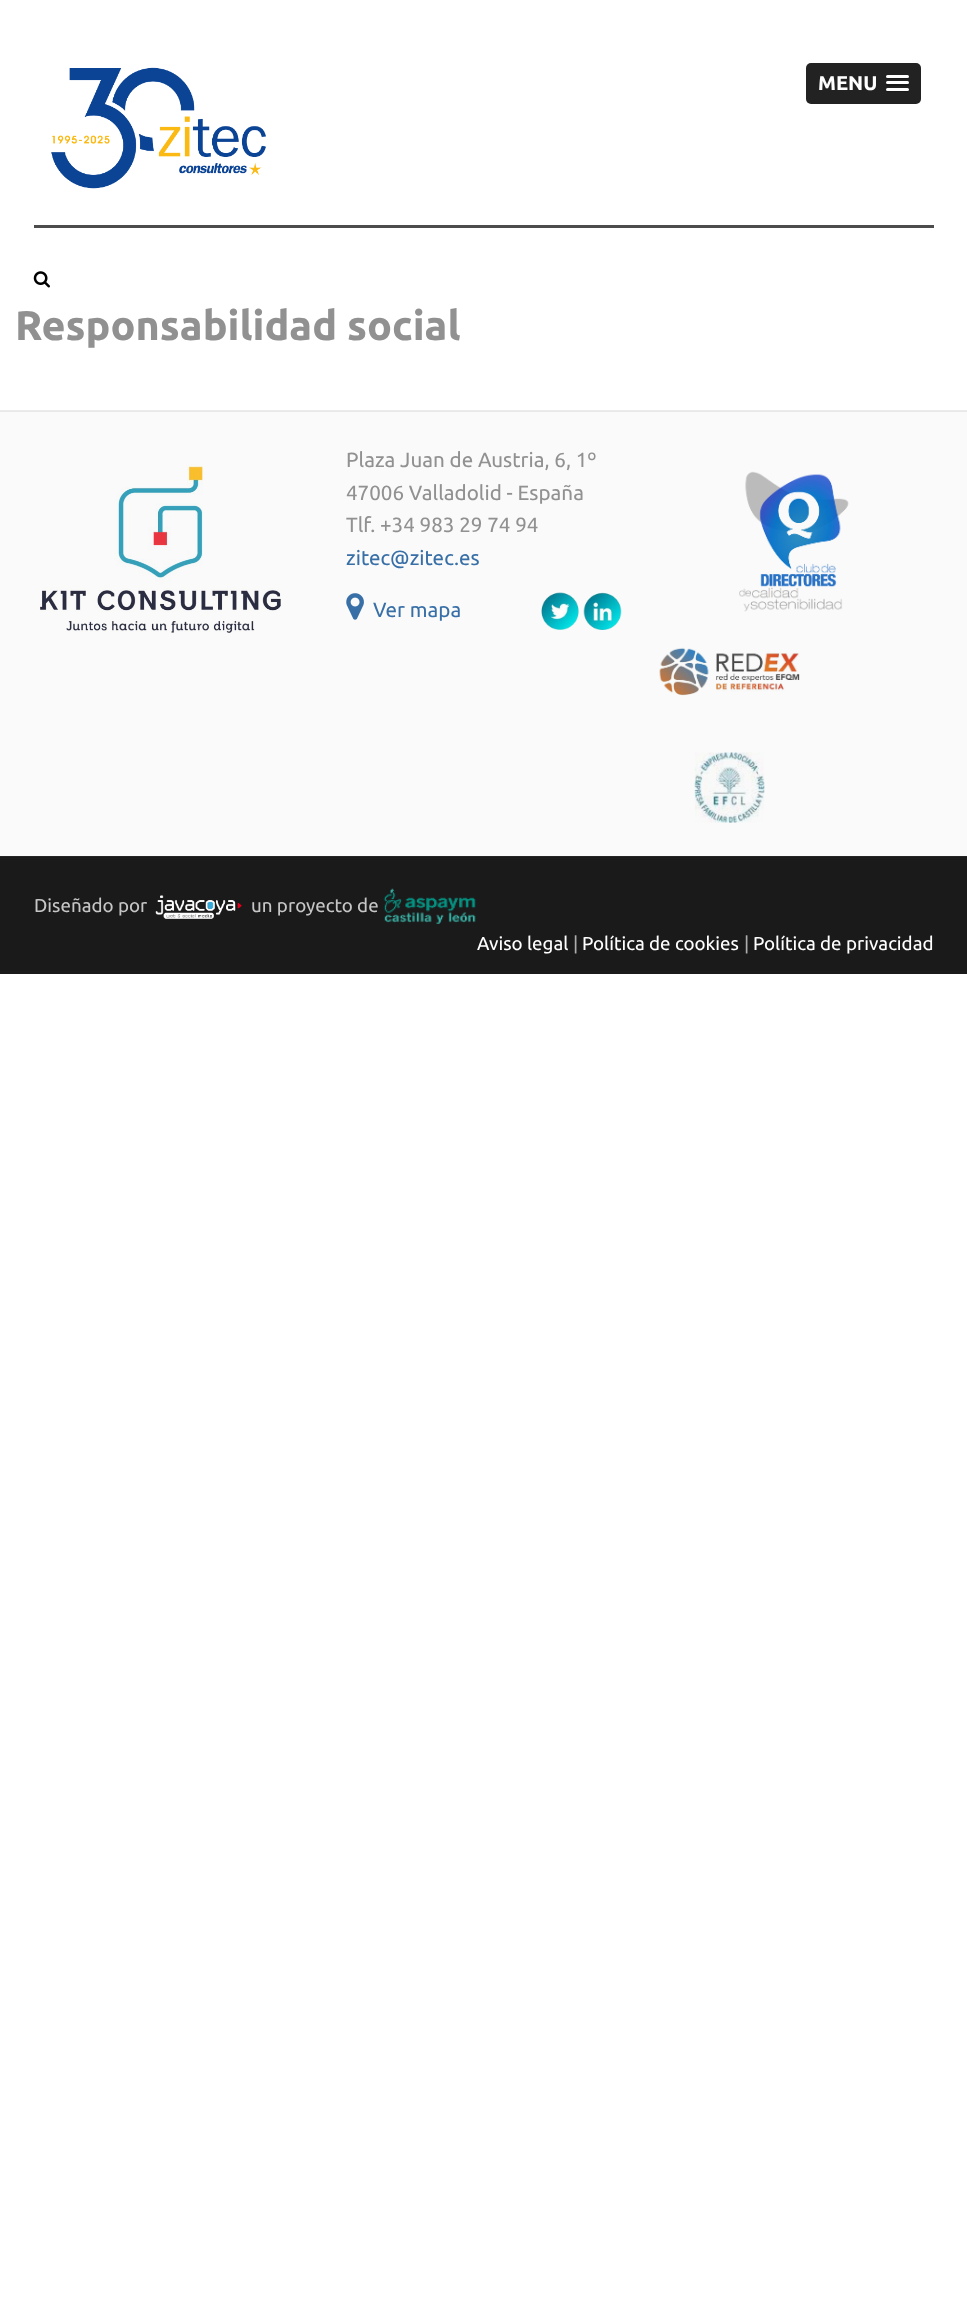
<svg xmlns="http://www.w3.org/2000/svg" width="967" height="2315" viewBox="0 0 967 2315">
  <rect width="100%" height="100%" fill="#fff"/>
  <image x="51" y="67" width="215" height="122" href="img/1.png"/>
  <path d="M34 225h900v3H34z" fill="#4c4c4c"/>
  <rect x="806" y="63" width="115" height="41" rx="5" fill="#222"/>
  <path d="M886.5 76.5C884 79.5 890.5 79 891 79H904C904.5 79 911 79.5 908.5 76.5C908.5 77 908 77.5 907.5 77.5H887.5C887 77.5 886.5 77 886.5 76.5Z" fill="#1a1a1a"/>
  <rect x="886" y="75" width="23" height="3" rx="1.5" fill="#fff"/>
  <path d="M886.5 83.5C886 83.5 886 84.5 886 85C886.5 87 890 86 891 86H908C909 85.5 909.5 84 908.5 83.5C907.5 84 887.5 84 886.5 83.5Z" fill="#1a1a1a"/>
  <rect x="886" y="81" width="23" height="3" rx="1.5" fill="#fff"/>
  <path d="M886.5 89.5L886 91C886.5 93 890 92 891 92H904C905 92 908.5 93 909 91L908.5 89.5L907.5 90H887.5Z" fill="#1a1a1a"/>
  <rect x="886" y="88" width="23" height="3" rx="1.5" fill="#fff"/>
  <image x="33" y="271" width="17" height="17" href="img/2.png"/>
  <path d="M0 410h967v1H0z" fill="#ebebeb"/>
  <path d="M0 412h967v444H0z" fill="#fafafa"/>
  <path d="M0 411h967v1H0z" fill="#e8e8e8"/>
  <image x="40" y="464" width="241" height="169" href="img/3.png"/>
  <image x="346" y="593" width="18" height="27" href="img/4.png"/>
  <image x="541" y="592" width="38" height="38" href="img/5.png"/>
  <image x="583" y="592" width="39" height="38" href="img/6.png"/>
  <image x="739" y="471" width="110" height="141" href="img/7.png"/>
  <image x="659" y="647" width="141" height="49" href="img/8.png"/>
  <image x="694" y="752" width="71" height="71" href="img/9.png"/>
  <path d="M0 857h967v117H0z" fill="#1a1a1a"/>
  <path d="M0 856h967v1H0z" fill="#252525"/>
  <image x="155" y="895" width="87" height="24" href="img/10.png"/>
  <image x="383" y="888" width="93" height="36" href="img/11.png"/>
  <text x="818" y="90" font-family="Ubuntu" font-size="20" font-weight="bold" fill="#fff">MENU</text>
  <text x="15" y="340" font-family="Ubuntu" font-size="41.25" font-weight="bold" fill="#919191">Responsabilidad social</text>
  <g font-family="Ubuntu" font-size="20.6" fill="#919191">
    <text x="346" y="467">Plaza Juan de Austria, 6, 1º</text>
    <text x="346" y="500">47006 Valladolid - España</text>
    <text x="346" y="532">Tlf. +34 983 29 74 94</text>
  </g>
  <g font-family="Ubuntu" font-size="20.6" fill="#386fa7">
    <text x="346" y="565">zitec@zitec.es</text>
    <text x="373" y="617">Ver mapa</text>
  </g>
  <g font-family="Ubuntu" font-size="18.75" fill="#c7c6c6">
    <text x="34" y="912">Diseñado por</text>
    <text x="251" y="912">un proyecto de</text>
  </g>
  <text x="477" y="950" font-family="Ubuntu" font-size="18.75" fill="#fff">Aviso legal</text>
  <text x="573" y="950" font-family="Ubuntu" font-size="18.75" fill="#adadad">|</text>
  <text x="582" y="950" font-family="Ubuntu" font-size="18.75" fill="#fff">Política de cookies</text>
  <text x="744" y="950" font-family="Ubuntu" font-size="18.75" fill="#adadad">|</text>
  <text x="753" y="950" font-family="Ubuntu" font-size="18.75" fill="#fff">Política de privacidad</text>
</svg>
